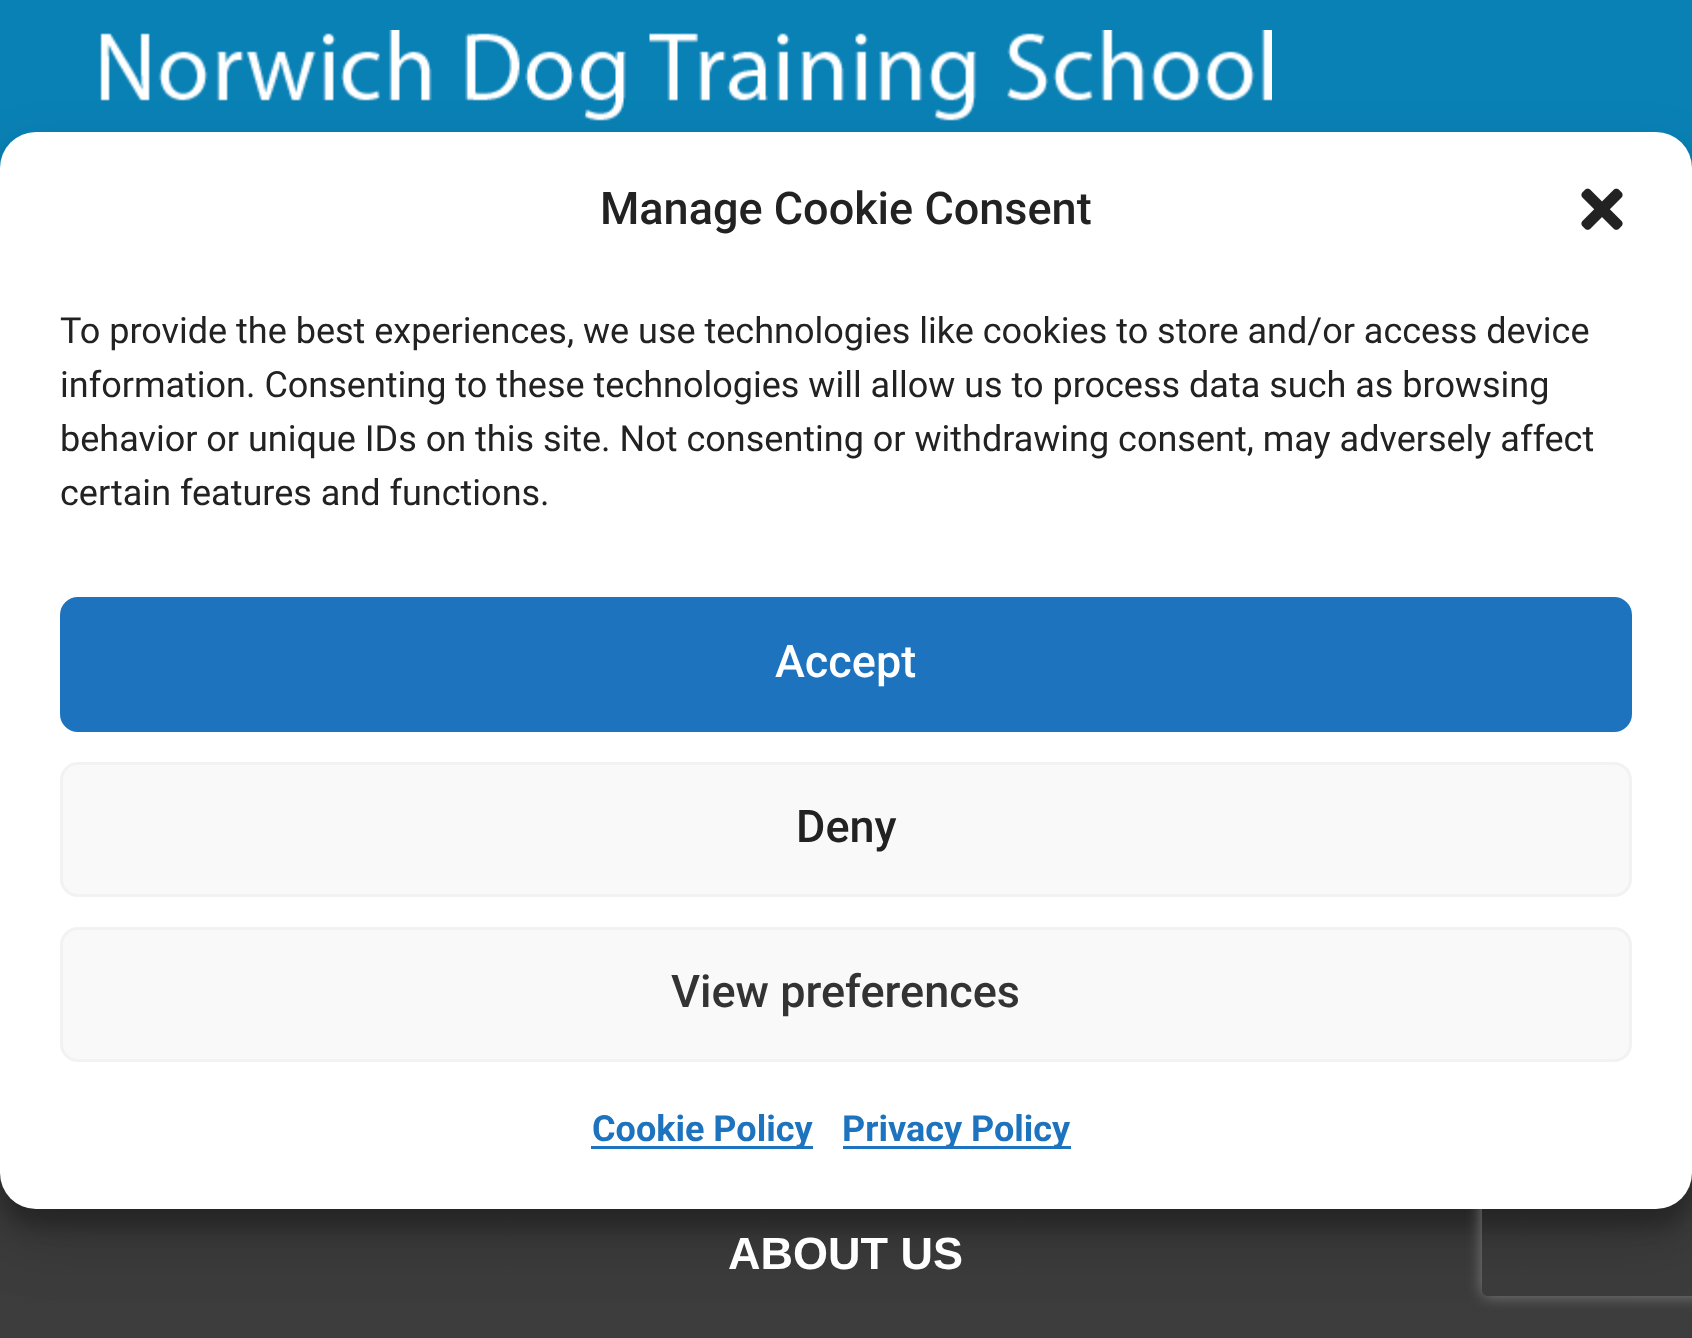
<svg xmlns="http://www.w3.org/2000/svg" width="1692" height="1338" viewBox="0 0 1692 1338">
  <defs>
    <linearGradient id="g1" gradientUnits="userSpaceOnUse" x1="846" y1="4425" x2="846" y2="1050"><stop offset="0" stop-color="#575860"/><stop offset="1" stop-color="#3a3a3a"/></linearGradient>
    <clipPath id="clip1"><path d="M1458 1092H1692V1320H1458ZM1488 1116H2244C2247.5 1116 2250 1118.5 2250 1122V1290C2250 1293.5 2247.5 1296 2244 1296H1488C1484.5 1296 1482 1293.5 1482 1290V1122C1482 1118.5 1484.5 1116 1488 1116Z" clip-rule="evenodd"/></clipPath>
  </defs>
  <rect width="100%" height="100%" fill="#fff"/>
  <path d="M0 0h1692v168H0z" fill="#0a81b5"/>
  <image x="100" y="30" width="1172" height="91" href="img/1.png"/>
  <path d="M0 1173h1692v165H0z" fill="url(#g1)"/>
  <rect y="150" width="1692" height="1077" rx="36" fill="#0000003b" filter="blur(9px)"/>
  <rect y="162" width="1692" height="1077" rx="36" fill="#00000030" filter="blur(30px)"/>
  <g clip-path="url(#clip1)">
    <rect x="1482" y="1116" width="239" height="180" rx="6" fill="#808080" filter="blur(7.5px)"/>
  </g>
  <rect y="132" width="1692" height="1077" rx="36" fill="#fff"/>
  <image x="1581" y="188" width="42" height="42" href="img/2.png"/>
  <rect x="61.5" y="598.5" width="1569" height="132" rx="16.5" fill="#1e73be" stroke="#1e73be" stroke-width="3"/>
  <rect x="61.5" y="763.5" width="1569" height="132" rx="16.5" fill="#f9f9f9" stroke="#f2f2f2" stroke-width="3"/>
  <rect x="61.5" y="928.5" width="1569" height="132" rx="16.5" fill="#f9f9f9" stroke="#f2f2f2" stroke-width="3"/>
  <path d="M591 1146h222v3H591z" fill="#1e73be"/>
  <path d="M843 1146h228v3H843z" fill="#1e73be"/>
  <text x="600" y="224" font-family="Roboto" font-size="45" font-weight="500" fill="#222">Manage Cookie Consent</text>
  <g font-family="Roboto" font-size="36" fill="#222">
    <text x="60" y="343">To provide the best experiences, we use technologies like cookies to store and/or access device</text>
    <text x="60" y="397">information. Consenting to these technologies will allow us to process data such as browsing</text>
    <text x="60" y="451">behavior or unique IDs on this site. Not consenting or withdrawing consent, may adversely affect</text>
    <text x="60" y="505">certain features and functions.</text>
  </g>
  <text x="775" y="677" font-family="Roboto" font-size="45" font-weight="500" fill="#fff">Accept</text>
  <text x="796" y="842" font-family="Roboto" font-size="45" font-weight="500" fill="#222">Deny</text>
  <text x="671" y="1007" font-family="Roboto" font-size="45" font-weight="500" fill="#333">View preferences</text>
  <g font-family="Roboto" font-size="36" font-weight="bold" fill="#1e73be">
    <text x="592" y="1141">Cookie Policy</text>
    <text x="842" y="1141">Privacy Policy</text>
  </g>
  <text x="728" y="1269" font-family="Liberation Sans" font-size="45" font-weight="bold" fill="#fff">ABOUT US</text>
</svg>
